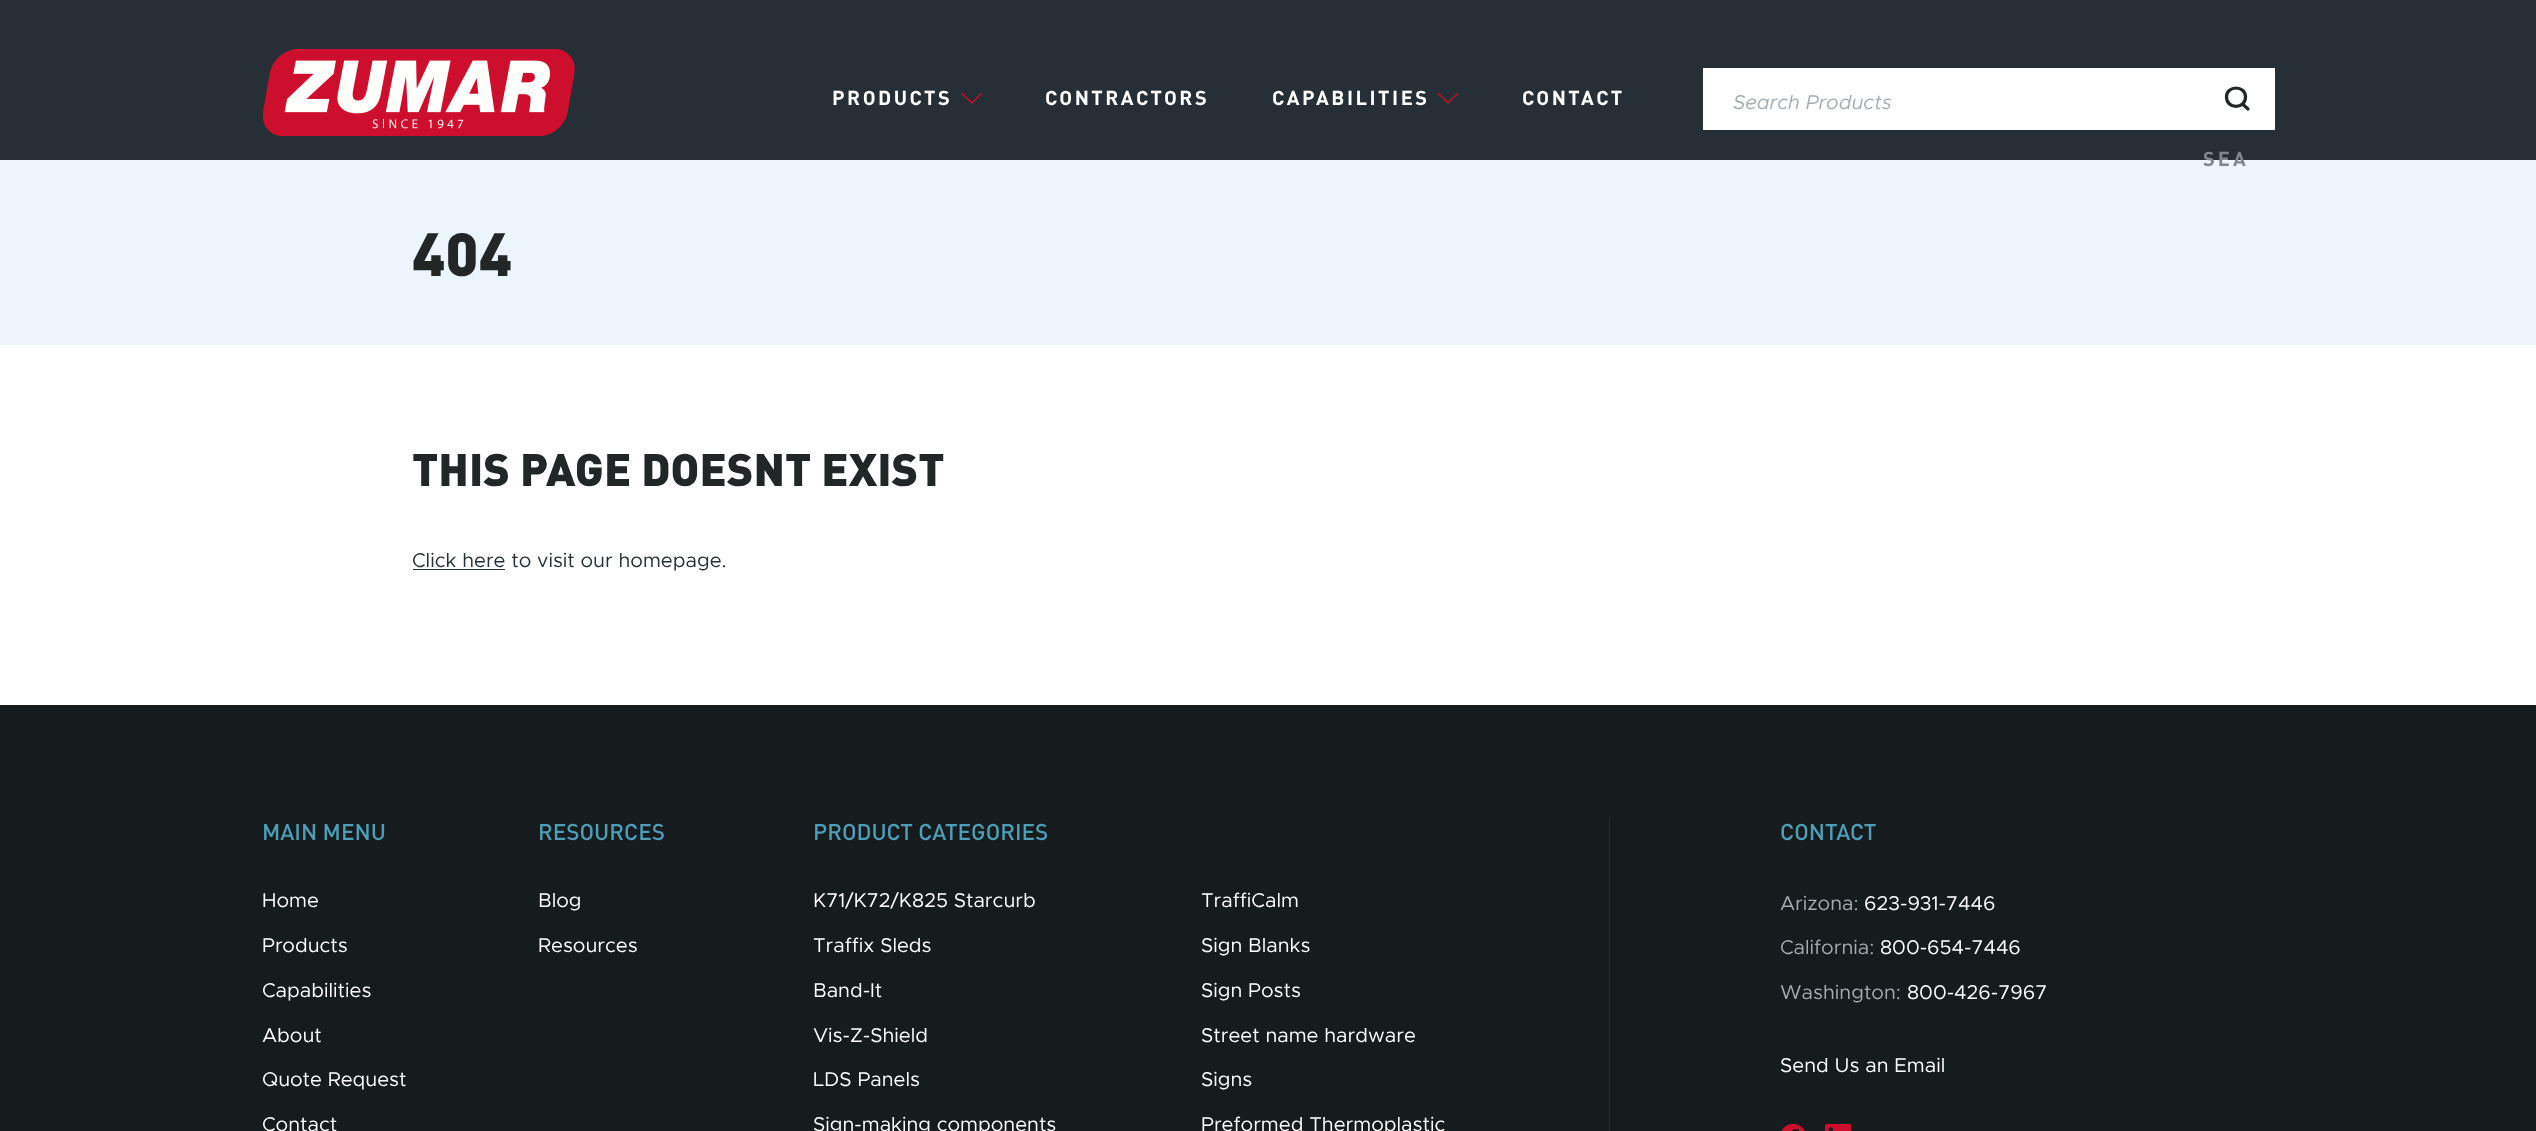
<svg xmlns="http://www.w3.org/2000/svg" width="2536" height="1131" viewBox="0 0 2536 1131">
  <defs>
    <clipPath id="clip1"><path d="M1438 93h21v11H1438z"/></clipPath>
  </defs>
  <rect width="100%" height="100%" fill="#fff"/>
  <path d="M0 0h2536v160H0z" fill="#272f36"/>
  <image x="263" y="49" width="312" height="87" href="img/1.png"/>
  <path d="M962 93.5L972 103L981.5 93.5" fill="none" stroke="#ce0e2d" stroke-width="1.4" stroke-linecap="round" stroke-linejoin="round"/>
  <g clip-path="url(#clip1)">
    <path d="M1438.5 93.5L1448 103L1457.5 93.5" fill="none" stroke="#ce0e2d" stroke-width="1.4" stroke-linecap="round" stroke-linejoin="round"/>
  </g>
  <path d="M1703 68h572v62H1703z" fill="#fff"/>
  <path d="M2245.5 97C2245.5 109.5 2226.5 109.5 2226.5 97C2226.5 85 2245.5 85 2245.5 97ZM2248 109L2242.5 104" fill="none" stroke="#222626" stroke-width="3.2" stroke-linecap="round" stroke-linejoin="round"/>
  <path d="M0 160h2536v185H0z" fill="#ebf5fb"/>
  <path d="M413 569h92v1H413z" fill="#272f36"/>
  <path d="M0 705h2536v426H0z" fill="#161b1e"/>
  <path d="M1609 818h1v313H1609z" fill="#272f36"/>
  <image x="1781" y="1124" width="24" height="7" href="img/2.png"/>
  <image x="1825" y="1124" width="26" height="7" href="img/3.png"/>
  <g font-family="DIN" font-size="20" font-weight="bold" letter-spacing="2.5" fill="#fff">
    <text x="832" y="105">PRODUCTS</text>
    <text x="1045" y="105">CONTRACTORS</text>
    <text x="1272" y="105">CAPABILITIES</text>
    <text x="1522" y="105">CONTACT</text>
  </g>
  <text x="1733" y="109" font-family="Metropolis" font-size="20" font-style="italic" fill="#a5acb1">Search Products</text>
  <text x="2203" y="166" font-family="DIN" font-size="20" font-weight="bold" letter-spacing="3" fill="#7e878d">SEA</text>
  <text x="412" y="276" font-family="DIN" font-size="60" font-weight="900" fill="#222626">404</text>
  <text x="412" y="486" font-family="DIN" font-size="45" font-weight="900" fill="#222626">THIS PAGE DOESNT EXIST</text>
  <text x="412" y="567" font-family="Metropolis" font-size="20" fill="#272f36">Click here to visit our homepage.</text>
  <text x="262" y="840" font-family="DIN" font-size="22.5" font-weight="500" fill="#4d9eb8">MAIN MENU</text>
  <g font-family="Metropolis" font-size="20" fill="#fff">
    <text x="262" y="907">Home</text>
    <text x="262" y="952">Products</text>
    <text x="262" y="997">Capabilities</text>
    <text x="262" y="1042">About</text>
    <text x="262" y="1086">Quote Request</text>
    <text x="262" y="1131">Contact</text>
  </g>
  <text x="538" y="840" font-family="DIN" font-size="22.5" font-weight="500" fill="#4d9eb8">RESOURCES</text>
  <g font-family="Metropolis" font-size="20" fill="#fff">
    <text x="538" y="907">Blog</text>
    <text x="538" y="952">Resources</text>
  </g>
  <text x="813" y="840" font-family="DIN" font-size="22.5" font-weight="500" fill="#4d9eb8">PRODUCT CATEGORIES</text>
  <g font-family="Metropolis" font-size="20" fill="#fff">
    <text x="813" y="907">K71/K72/K825 Starcurb</text>
    <text x="1201" y="907">TraffiCalm</text>
    <text x="813" y="952">Traffix Sleds</text>
    <text x="1201" y="952">Sign Blanks</text>
    <text x="813" y="997">Band-It</text>
    <text x="1201" y="997">Sign Posts</text>
    <text x="813" y="1042">Vis-Z-Shield</text>
    <text x="1201" y="1042">Street name hardware</text>
    <text x="813" y="1086">LDS Panels</text>
    <text x="1201" y="1086">Signs</text>
    <text x="813" y="1131">Sign-making components</text>
    <text x="1201" y="1131">Preformed Thermoplastic</text>
  </g>
  <text x="1780" y="840" font-family="DIN" font-size="22.5" font-weight="500" fill="#4d9eb8">CONTACT</text>
  <text x="1780" y="910" font-family="Metropolis" font-size="20" fill="#a5acb1">Arizona:</text>
  <text x="1864" y="910" font-family="Metropolis" font-size="20" fill="#fff">623-931-7446</text>
  <text x="1780" y="954" font-family="Metropolis" font-size="20" fill="#a5acb1">California:</text>
  <text x="1880" y="954" font-family="Metropolis" font-size="20" fill="#fff">800-654-7446</text>
  <text x="1780" y="999" font-family="Metropolis" font-size="20" fill="#a5acb1">Washington:</text>
  <g font-family="Metropolis" font-size="20" fill="#fff">
    <text x="1907" y="999">800-426-7967</text>
    <text x="1780" y="1072">Send Us an Email</text>
  </g>
</svg>
